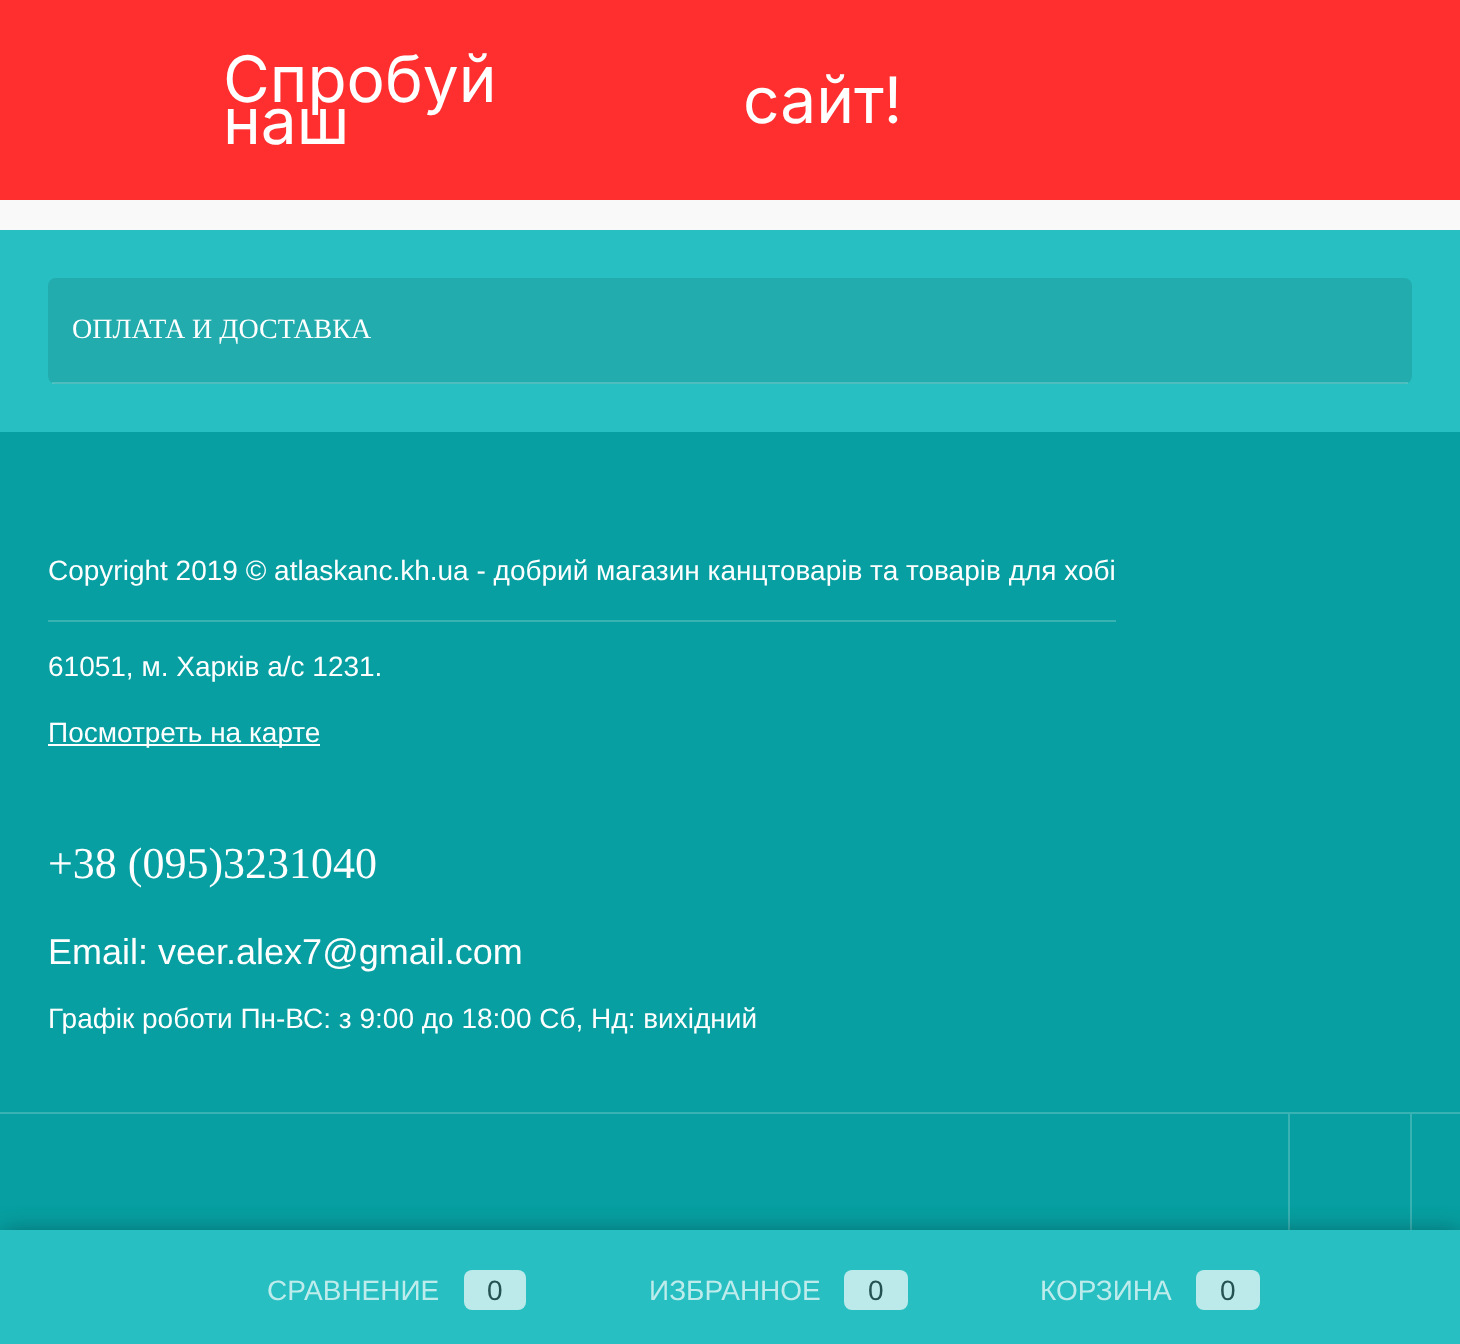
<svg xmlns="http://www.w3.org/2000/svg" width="1460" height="1344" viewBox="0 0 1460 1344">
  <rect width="100%" height="100%" fill="#f9f9f9"/>
  <path d="M0 0h1460v200H0z" fill="#ff2f2f"/>
  <path d="M0 230h1460v202H0z" fill="#27bfc1"/>
  <rect x="48" y="278" width="1364" height="106" rx="8" fill="#23acad"/>
  <path d="M52 382h1356v2H52z" fill="#ffffff33"/>
  <path d="M0 432h1460v680H0z" fill="#079fa1"/>
  <path d="M48 620h1068v2H48z" fill="#39b2b4"/>
  <path d="M48 744h272v2H48z" fill="#fff"/>
  <path d="M0 1114h1460v116H0z" fill="#079fa1"/>
  <path d="M0 1112h1460v2H0z" fill="#39b2b4"/>
  <path d="M1410 1114h2v120H1410z" fill="#39b2b4"/>
  <path d="M1288 1114h2v120H1288z" fill="#39b2b4"/>
  <path d="M2 1232h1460v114H2z" fill="#00000059" filter="blur(12px)"/>
  <path d="M0 1230h1460v114H0z" fill="#27bfc1"/>
  <rect x="464" y="1270" width="62" height="40" rx="8" fill="#bceaea"/>
  <rect x="844" y="1270" width="64" height="40" rx="8" fill="#bceaea"/>
  <rect x="1196" y="1270" width="64" height="40" rx="8" fill="#bceaea"/>
  <g font-family="Inter" font-size="64" fill="#fff">
    <text x="223" y="102">Спробуй</text>
    <text x="223" y="144">наш</text>
    <text x="743" y="123">сайт!</text>
  </g>
  <text x="72" y="338" font-family="Liberation Serif" font-size="28" fill="#fff">ОПЛАТА И ДОСТАВКА</text>
  <g font-family="Liberation Sans" font-size="28" fill="#fff">
    <text x="48" y="580">Copyright 2019 © atlaskanc.kh.ua - добрий магазин канцтоварів та товарів для хобі</text>
    <text x="48" y="676">61051, м. Харків а/с 1231.</text>
    <text x="48" y="742">Посмотреть на карте</text>
  </g>
  <text x="48" y="878" font-family="Liberation Serif" font-size="44" fill="#fff">+38 (095)3231040</text>
  <text x="48" y="964" font-family="Liberation Sans" font-size="36" fill="#fff">Email: veer.alex7@gmail.com</text>
  <text x="48" y="1028" font-family="Liberation Sans" font-size="28" fill="#fff">Графік роботи Пн-ВС: з 9:00 до 18:00 Сб, Нд: вихідний</text>
  <text x="267" y="1300" font-family="Liberation Sans" font-size="28" fill="#beecec">СРАВНЕНИЕ</text>
  <text x="487" y="1300" font-family="Liberation Sans" font-size="28" fill="#245152">0</text>
  <text x="649" y="1300" font-family="Liberation Sans" font-size="28" fill="#beecec">ИЗБРАННОЕ</text>
  <text x="868" y="1300" font-family="Liberation Sans" font-size="28" fill="#245152">0</text>
  <text x="1040" y="1300" font-family="Liberation Sans" font-size="28" fill="#beecec">КОРЗИНА</text>
  <text x="1220" y="1300" font-family="Liberation Sans" font-size="28" fill="#245152">0</text>
</svg>
